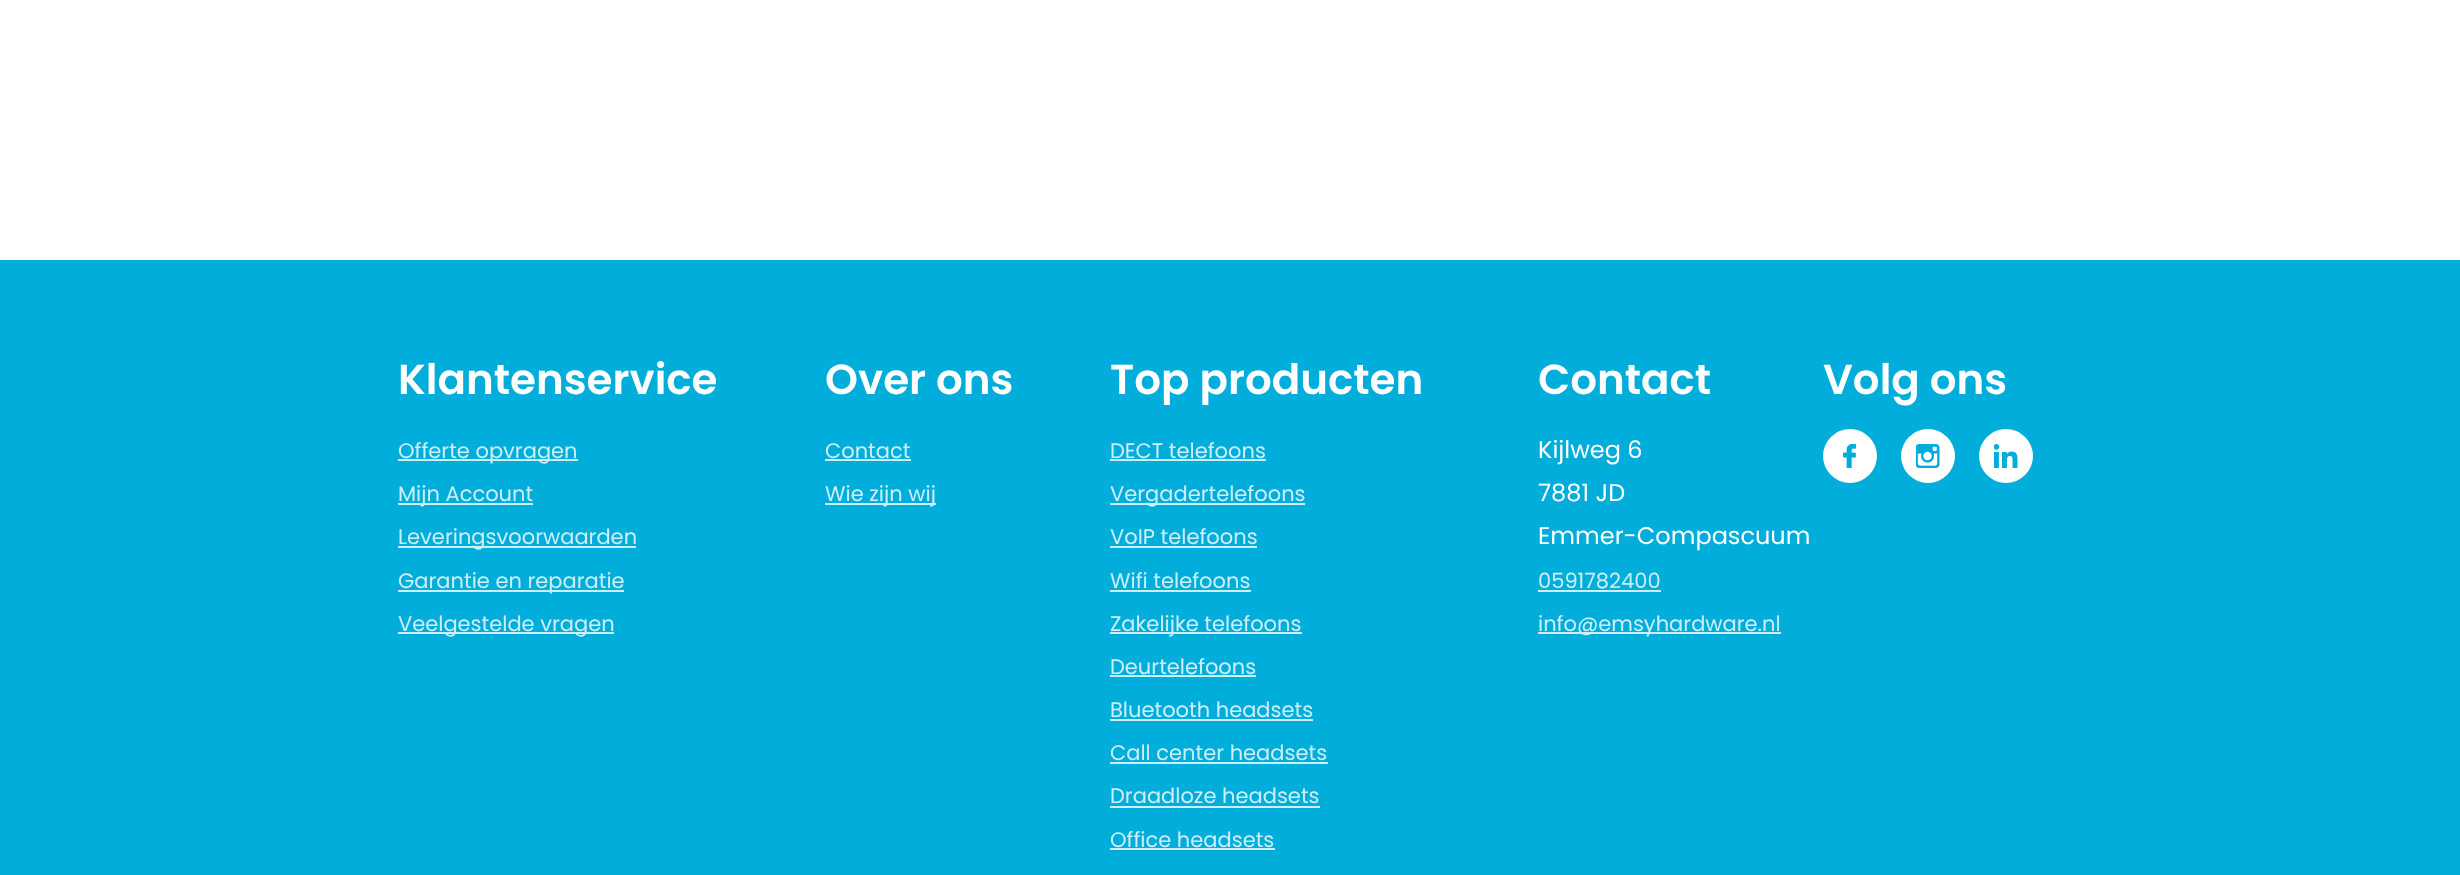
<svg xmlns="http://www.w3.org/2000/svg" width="2460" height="875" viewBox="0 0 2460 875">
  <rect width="100%" height="100%" fill="#fff"/>
  <path d="M0 260h2460v615H0z" fill="#00addb"/>
  <path d="M398 459h180v2H398z" fill="#cceff8"/>
  <path d="M398 503h135v2H398z" fill="#cceff8"/>
  <path d="M398 546h238v2H398z" fill="#cceff8"/>
  <path d="M398 590h226v2H398z" fill="#cceff8"/>
  <path d="M398 632h216v2H398z" fill="#cceff8"/>
  <path d="M825 459h86v2H825z" fill="#cceff8"/>
  <path d="M825 503h111v2H825z" fill="#cceff8"/>
  <path d="M1110 459h156v2H1110z" fill="#cceff8"/>
  <path d="M1110 503h195v2H1110z" fill="#cceff8"/>
  <path d="M1110 546h147v2H1110z" fill="#cceff8"/>
  <path d="M1110 590h141v2H1110z" fill="#cceff8"/>
  <path d="M1110 632h192v2H1110z" fill="#cceff8"/>
  <path d="M1110 675h146v2H1110z" fill="#cceff8"/>
  <path d="M1110 719h203v2H1110z" fill="#cceff8"/>
  <path d="M1110 762h218v2H1110z" fill="#cceff8"/>
  <path d="M1110 806h210v2H1110z" fill="#cceff8"/>
  <path d="M1110 848h165v2H1110z" fill="#cceff8"/>
  <path d="M1538 590h123v2H1538z" fill="#cceff8"/>
  <path d="M1538 632h243v2H1538z" fill="#cceff8"/>
  <circle cx="1850" cy="456" r="27" fill="#fff"/>
  <image x="1843" y="444" width="13" height="24" href="img/1.png"/>
  <circle cx="1928" cy="456" r="27" fill="#fff"/>
  <image x="1916" y="444" width="24" height="24" href="img/2.png"/>
  <circle cx="2006" cy="456" r="27" fill="#fff"/>
  <image x="1994" y="444" width="24" height="24" href="img/3.png"/>
  <text x="398" y="394" font-family="Poppins" font-size="42" font-weight="600" fill="#fff">Klantenservice</text>
  <g font-family="Poppins" font-size="21" fill="#cceff8">
    <text x="398" y="458">Offerte opvragen</text>
    <text x="398" y="501">Mijn Account</text>
    <text x="398" y="544">Leveringsvoorwaarden</text>
    <text x="398" y="588">Garantie en reparatie</text>
    <text x="398" y="631">Veelgestelde vragen</text>
  </g>
  <text x="825" y="394" font-family="Poppins" font-size="42" font-weight="600" fill="#fff">Over ons</text>
  <g font-family="Poppins" font-size="21" fill="#cceff8">
    <text x="825" y="458">Contact</text>
    <text x="825" y="501">Wie zijn wij</text>
  </g>
  <text x="1110" y="394" font-family="Poppins" font-size="42" font-weight="600" fill="#fff">Top producten</text>
  <g font-family="Poppins" font-size="21" fill="#cceff8">
    <text x="1110" y="458">DECT telefoons</text>
    <text x="1110" y="501">Vergadertelefoons</text>
    <text x="1110" y="544">VoIP telefoons</text>
    <text x="1110" y="588">Wifi telefoons</text>
    <text x="1110" y="631">Zakelijke telefoons</text>
    <text x="1110" y="674">Deurtelefoons</text>
    <text x="1110" y="717">Bluetooth headsets</text>
    <text x="1110" y="760">Call center headsets</text>
    <text x="1110" y="803">Draadloze headsets</text>
    <text x="1110" y="847">Office headsets</text>
  </g>
  <text x="1538" y="394" font-family="Poppins" font-size="42" font-weight="600" fill="#fff">Contact</text>
  <g font-family="Poppins" font-size="24" fill="#fff">
    <text x="1538" y="458">Kijlweg 6</text>
    <text x="1538" y="501">7881 JD</text>
    <text x="1538" y="544">Emmer-Compascuum</text>
  </g>
  <g font-family="Poppins" font-size="21" fill="#cceff8">
    <text x="1538" y="588">0591782400</text>
    <text x="1538" y="631">info@emsyhardware.nl</text>
  </g>
  <text x="1823" y="394" font-family="Poppins" font-size="42" font-weight="600" fill="#fff">Volg ons</text>
</svg>
